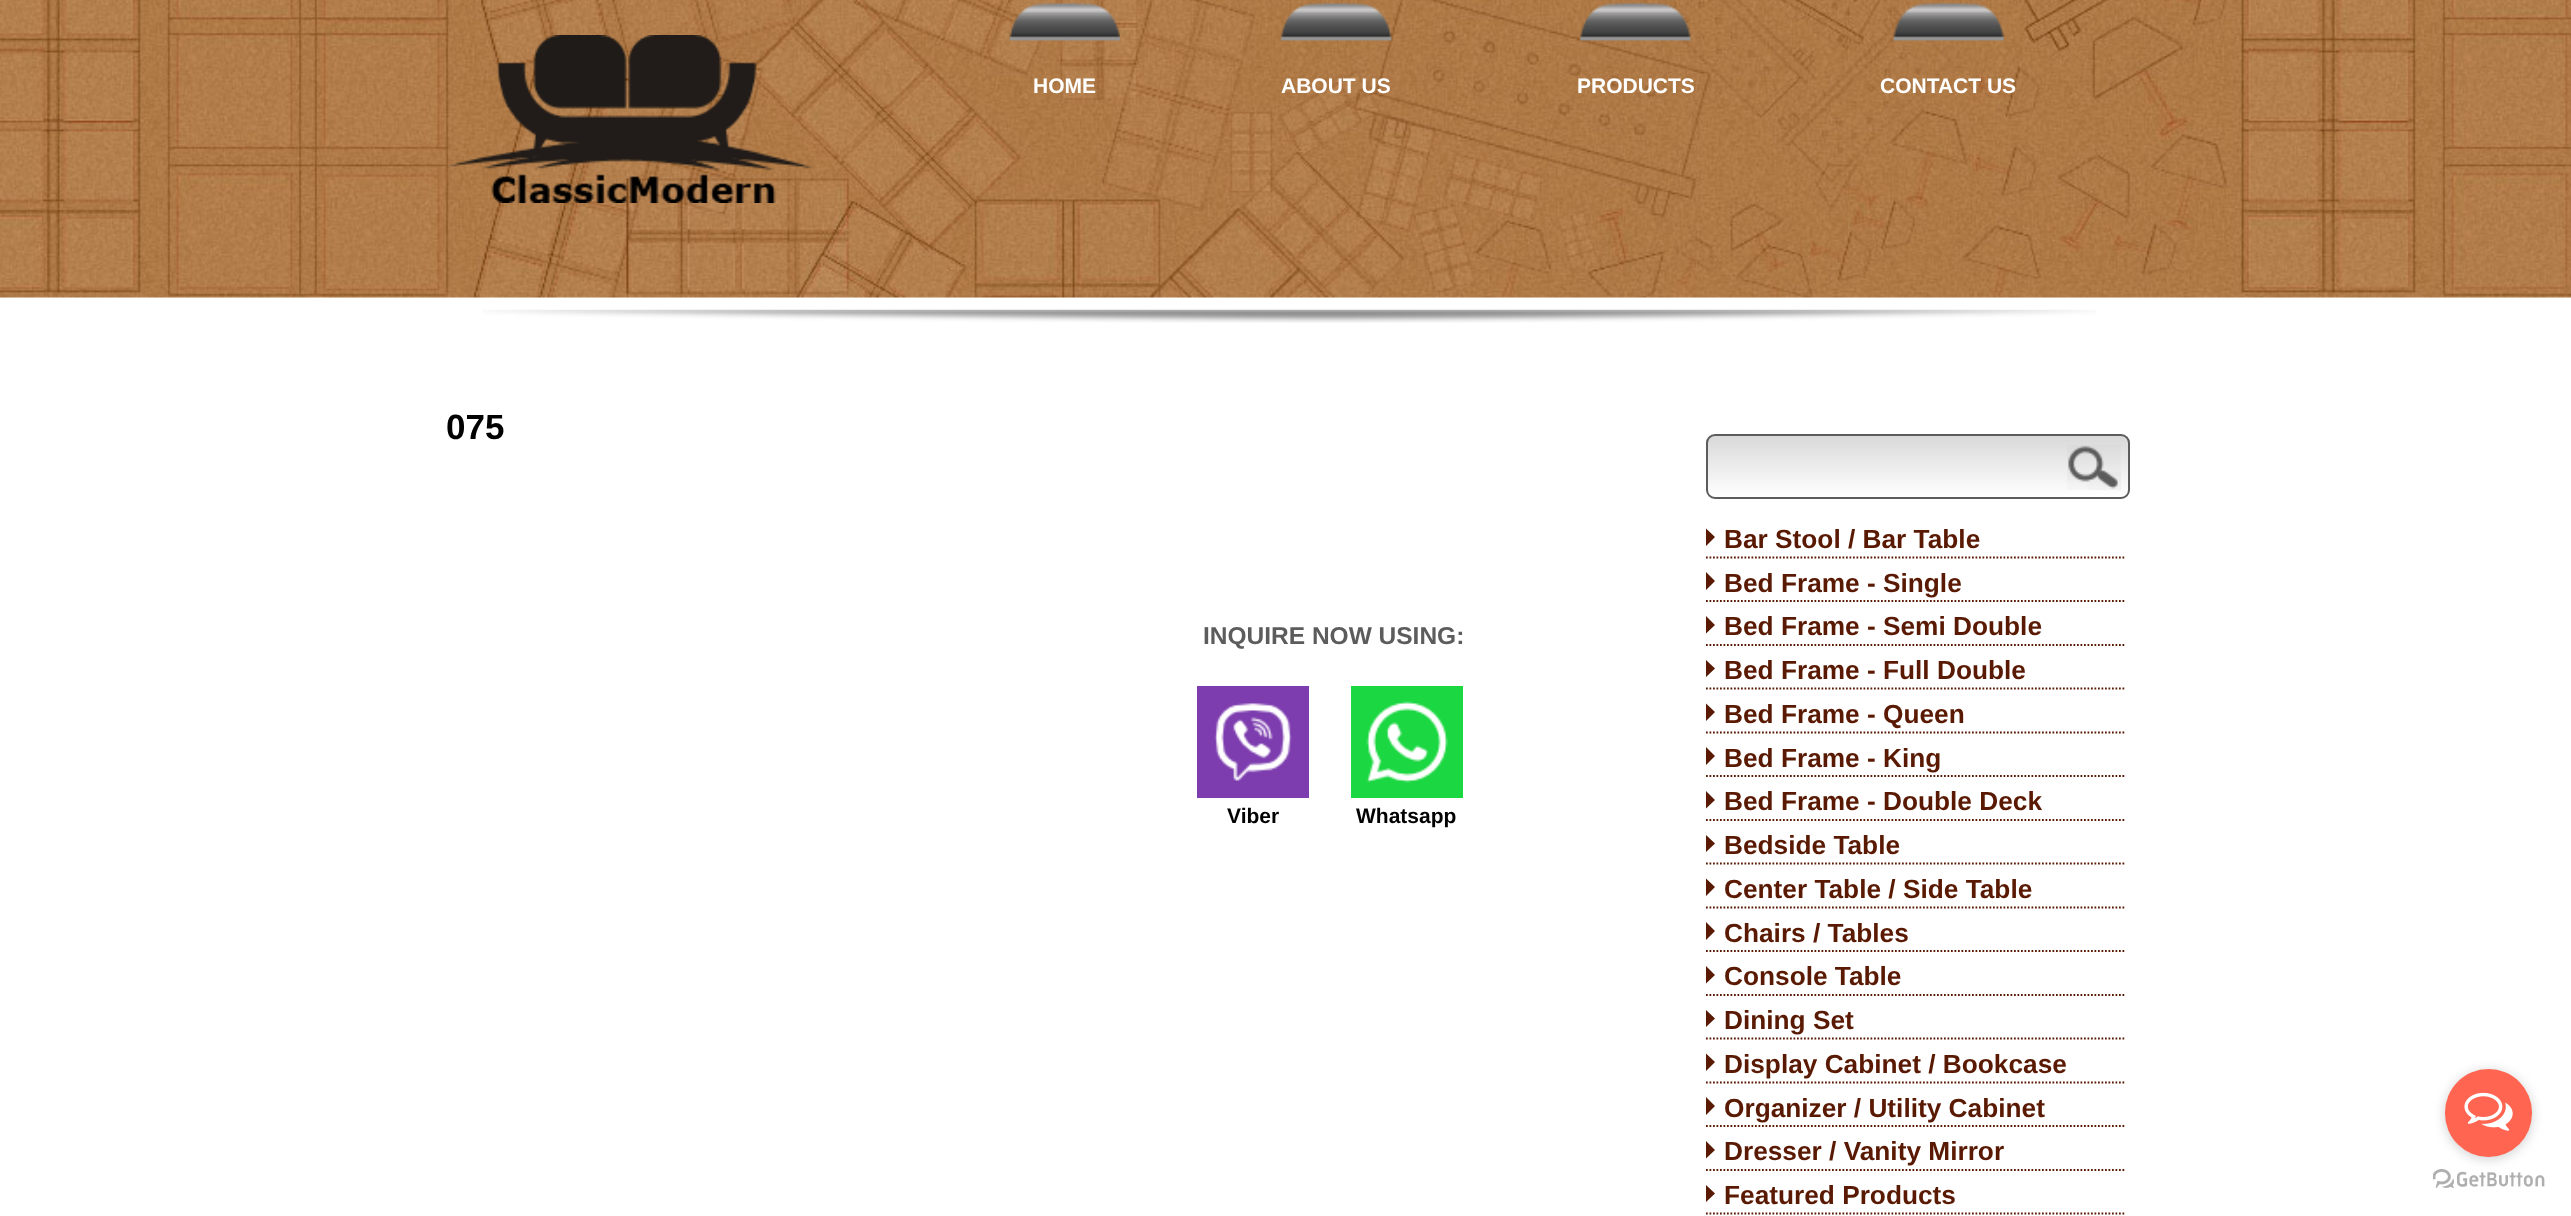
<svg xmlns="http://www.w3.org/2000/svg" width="2571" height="1216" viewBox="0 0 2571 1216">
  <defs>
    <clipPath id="clip1"><rect x="1706" y="434" width="424" height="65" rx="9"/></clipPath>
    <linearGradient id="g1" gradientUnits="userSpaceOnUse" x1="1918" y1="436" x2="1918" y2="497"><stop offset="0" stop-color="#d9d9d9"/><stop offset="1" stop-color="#fff"/></linearGradient>
  </defs>
  <rect width="100%" height="100%" fill="#fff"/>
  <image x="0" y="0" width="2571" height="298" href="img/1.png"/>
  <image x="448" y="35" width="366" height="168" href="img/2.png"/>
  <image x="1009" y="3" width="111" height="38" href="img/3.png"/>
  <image x="1280" y="3" width="112" height="38" href="img/4.png"/>
  <image x="1579" y="3" width="112" height="38" href="img/5.png"/>
  <image x="1893" y="3" width="111" height="38" href="img/6.png"/>
  <image x="482" y="309" width="1614" height="14" href="img/7.png"/>
  <image x="1197" y="686" width="112" height="112" href="img/8.png"/>
  <image x="1351" y="686" width="112" height="112" href="img/9.png"/>
  <g clip-path="url(#clip1)">
    <path d="M1706 436h424v61H1706z" fill="url(#g1)"/>
  </g>
  <rect x="1707" y="435" width="422" height="63" rx="8" fill="none" stroke="#5c5c5c" stroke-width="2"/>
  <image x="2067" y="445" width="54" height="45" href="img/10.png"/>
  <path d="M1706 557.5H2126" fill="none" stroke="#591902" stroke-width="1.8" stroke-dasharray="1.75 1.75"/>
  <path d="M1706 546V528.5L1715 537ZM1706 590V572L1715 581Z" fill="#591902"/>
  <path d="M1706 601H2126" fill="none" stroke="#591902" stroke-width="1.8" stroke-dasharray="1.75 1.75"/>
  <path d="M1706 645H2126" fill="none" stroke="#591902" stroke-width="1.8" stroke-dasharray="1.75 1.75"/>
  <path d="M1706 633.5V616L1715 625ZM1706 677V660L1715 668.5Z" fill="#591902"/>
  <path d="M1706 688.5H2126" fill="none" stroke="#591902" stroke-width="1.8" stroke-dasharray="1.75 1.75"/>
  <path d="M1706 732.5H2126" fill="none" stroke="#591902" stroke-width="1.8" stroke-dasharray="1.75 1.75"/>
  <path d="M1706 721V703.5L1715 712ZM1706 765V747L1715 756Z" fill="#591902"/>
  <path d="M1706 776H2126" fill="none" stroke="#591902" stroke-width="1.8" stroke-dasharray="1.75 1.75"/>
  <path d="M1706 820H2126" fill="none" stroke="#591902" stroke-width="1.8" stroke-dasharray="1.75 1.75"/>
  <path d="M1706 808.5V791L1715 800ZM1706 852V835L1715 843.5Z" fill="#591902"/>
  <path d="M1706 863.5H2126" fill="none" stroke="#591902" stroke-width="1.8" stroke-dasharray="1.75 1.75"/>
  <path d="M1706 907.5H2126" fill="none" stroke="#591902" stroke-width="1.8" stroke-dasharray="1.75 1.75"/>
  <path d="M1706 896V878.5L1715 887ZM1706 940V922L1715 931Z" fill="#591902"/>
  <path d="M1706 951H2126" fill="none" stroke="#591902" stroke-width="1.8" stroke-dasharray="1.75 1.75"/>
  <path d="M1706 995H2126" fill="none" stroke="#591902" stroke-width="1.8" stroke-dasharray="1.75 1.75"/>
  <path d="M1706 983.5V966L1715 975ZM1706 1027V1010L1715 1018.5Z" fill="#591902"/>
  <path d="M1706 1038.5H2126" fill="none" stroke="#591902" stroke-width="1.8" stroke-dasharray="1.75 1.75"/>
  <path d="M1706 1082.5H2126" fill="none" stroke="#591902" stroke-width="1.8" stroke-dasharray="1.75 1.75"/>
  <path d="M1706 1071V1053.5L1715 1062ZM1706 1115V1097L1715 1106Z" fill="#591902"/>
  <path d="M1706 1126H2126" fill="none" stroke="#591902" stroke-width="1.8" stroke-dasharray="1.75 1.75"/>
  <path d="M1706 1170H2126" fill="none" stroke="#591902" stroke-width="1.8" stroke-dasharray="1.75 1.75"/>
  <path d="M1706 1158.5V1141L1715 1150ZM1706 1202V1185L1715 1193.5Z" fill="#591902"/>
  <path d="M1706 1213.5H2126" fill="none" stroke="#591902" stroke-width="1.8" stroke-dasharray="1.75 1.75"/>
  <image x="2433" y="1169" width="112" height="19" href="img/12.png"/>
  <rect x="2445" y="1071" width="87" height="88" rx="43.5" fill="#88888866" filter="blur(6px)"/>
  <rect x="2445" y="1069" width="87" height="88" rx="43.5" fill="#ff6550"/>
  <image x="2464" y="1092" width="49" height="39" href="img/11.png"/>
  <g font-family="Liberation Sans" font-size="21" font-weight="bold" fill="#fff">
    <text x="1033" y="93">HOME</text>
    <text x="1281" y="93">ABOUT US</text>
    <text x="1577" y="93">PRODUCTS</text>
    <text x="1880" y="93">CONTACT US</text>
  </g>
  <text x="446" y="439" font-family="Liberation Sans" font-size="35" font-weight="bold" fill="#000">075</text>
  <text x="1203" y="644" font-family="Liberation Sans" font-size="24.5" font-weight="bold" fill="#5c5c5c">INQUIRE NOW USING:</text>
  <g font-family="Liberation Sans" font-size="21" font-weight="bold" fill="#000">
    <text x="1227" y="823">Viber</text>
    <text x="1356" y="823">Whatsapp</text>
  </g>
  <g font-family="Liberation Sans" font-size="26.25" font-weight="bold" fill="#591902">
    <text x="1724" y="548">Bar Stool / Bar Table</text>
    <text x="1724" y="592">Bed Frame - Single</text>
    <text x="1724" y="635">Bed Frame - Semi Double</text>
    <text x="1724" y="679">Bed Frame - Full Double</text>
    <text x="1724" y="723">Bed Frame - Queen</text>
    <text x="1724" y="767">Bed Frame - King</text>
    <text x="1724" y="810">Bed Frame - Double Deck</text>
    <text x="1724" y="854">Bedside Table</text>
    <text x="1724" y="898">Center Table / Side Table</text>
    <text x="1724" y="942">Chairs / Tables</text>
    <text x="1724" y="985">Console Table</text>
    <text x="1724" y="1029">Dining Set</text>
    <text x="1724" y="1073">Display Cabinet / Bookcase</text>
    <text x="1724" y="1117">Organizer / Utility Cabinet</text>
    <text x="1724" y="1160">Dresser / Vanity Mirror</text>
    <text x="1724" y="1204">Featured Products</text>
  </g>
</svg>
